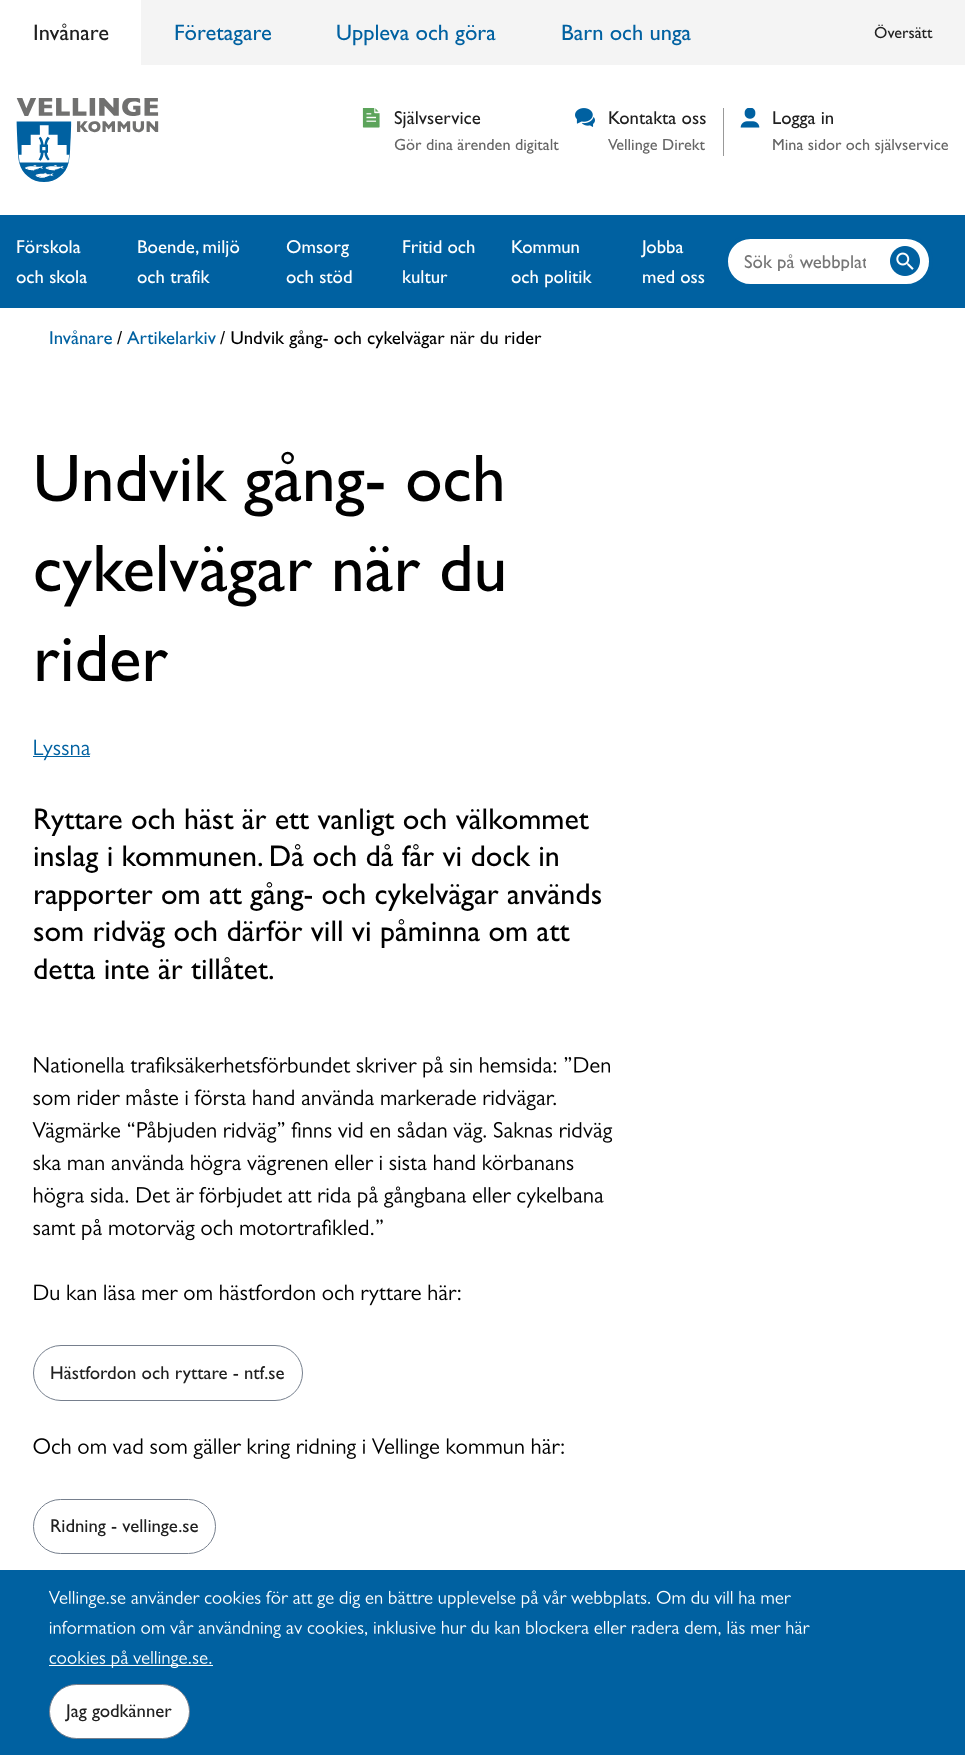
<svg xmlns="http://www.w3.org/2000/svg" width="965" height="1755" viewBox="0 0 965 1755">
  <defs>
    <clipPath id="clip1"><path d="M744 250h122v21H744z"/></clipPath>
  </defs>
  <rect width="100%" height="100%" fill="#fff"/>
  <path d="M141 0h824v65H141z" fill="#f4f4f4"/>
  <image x="16" y="98" width="143" height="84" href="img/1.png"/>
  <image x="362" y="108" width="18" height="20" href="img/2.png"/>
  <image x="575" y="108" width="20" height="19" href="img/3.png"/>
  <path d="M723 108h1v48H723z" fill="#999"/>
  <image x="740" y="108" width="20" height="20" href="img/4.png"/>
  <path d="M0 215h965v93H0z" fill="#0061a1"/>
  <rect x="726" y="237" width="205" height="49" rx="24.5" fill="#fff" stroke="#0061a1" stroke-width="4"/>
  <image x="890" y="246" width="30" height="30" href="img/5.png"/>
  <path d="M33 756h57v1H33z" fill="#0061a1"/>
  <image x="34" y="739" width="57" height="22" href="img/6.png"/>
  <image x="34" y="1056" width="576" height="22" href="img/7.png"/>
  <image x="33" y="1089" width="523" height="22" href="img/8.png"/>
  <image x="32" y="1121" width="581" height="22" href="img/9.png"/>
  <image x="33" y="1154" width="541" height="22" href="img/10.png"/>
  <image x="33" y="1186" width="571" height="22" href="img/11.png"/>
  <image x="33" y="1219" width="350" height="22" href="img/12.png"/>
  <image x="34" y="1284" width="427" height="22" href="img/13.png"/>
  <rect x="33.5" y="1345.5" width="269" height="55" rx="27.5" fill="none" stroke="#767f8d"/>
  <image x="33" y="1438" width="531" height="21" href="img/14.png"/>
  <rect x="33.5" y="1499.5" width="182" height="54" rx="27" fill="none" stroke="#767f8d"/>
  <path d="M0 1570h965v185H0z" fill="#0061a1"/>
  <image x="48" y="1590" width="743" height="19" href="img/15.png"/>
  <image x="49" y="1620" width="761" height="18" href="img/16.png"/>
  <path d="M49 1665h164v1H49z" fill="#fff"/>
  <image x="49" y="1650" width="163" height="19" href="img/17.png"/>
  <rect x="49.5" y="1684.5" width="140" height="54" rx="27" fill="#fff" stroke="#767f8d"/>
  <text x="33" y="40" font-family="Gill Sans" font-size="22.5" font-weight="500" fill="#202020">Invånare</text>
  <g font-family="Gill Sans" font-size="22.5" font-weight="500" fill="#0061a1">
    <text x="174" y="40">Företagare</text>
    <text x="336" y="40">Uppleva och göra</text>
    <text x="561" y="40">Barn och unga</text>
  </g>
  <text x="874" y="38" font-family="Gill Sans" font-size="16.25" font-weight="500" fill="#202020">Översätt</text>
  <text x="394" y="124" font-family="Gill Sans" font-size="18.75" font-weight="500" fill="#202020">Självservice</text>
  <text x="394" y="150" font-family="Gill Sans" font-size="16.25" font-weight="500" fill="#666">Gör dina ärenden digitalt</text>
  <text x="608" y="124" font-family="Gill Sans" font-size="18.75" font-weight="500" fill="#202020">Kontakta oss</text>
  <text x="608" y="150" font-family="Gill Sans" font-size="16.25" font-weight="500" fill="#666">Vellinge Direkt</text>
  <text x="772" y="124" font-family="Gill Sans" font-size="18.75" font-weight="500" fill="#202020">Logga in</text>
  <text x="772" y="150" font-family="Gill Sans" font-size="16.25" font-weight="500" fill="#666">Mina sidor och självservice</text>
  <g font-family="Gill Sans" font-size="18.75" font-weight="500" fill="#fff">
    <text x="16" y="253">Förskola</text>
    <text x="16" y="283">och skola</text>
    <text x="137" y="253">Boende, miljö</text>
    <text x="137" y="283">och trafik</text>
    <text x="286" y="253">Omsorg</text>
    <text x="286" y="283">och stöd</text>
    <text x="402" y="253">Fritid och</text>
    <text x="402" y="283">kultur</text>
    <text x="511" y="253">Kommun</text>
    <text x="511" y="283">och politik</text>
    <text x="642" y="253">Jobba</text>
    <text x="642" y="283">med oss</text>
  </g>
  <g clip-path="url(#clip1)">
    <text x="744" y="268" font-family="Gill Sans" font-size="18.75" font-weight="500" fill="#767676">Sök på webbplat</text>
  </g>
  <text x="49" y="344" font-family="Gill Sans" font-size="18.75" font-weight="500" fill="#0061a1">Invånare</text>
  <text x="117" y="344" font-family="Gill Sans" font-size="18.75" font-weight="500" fill="#000">/</text>
  <text x="127" y="344" font-family="Gill Sans" font-size="18.75" font-weight="500" fill="#0061a1">Artikelarkiv</text>
  <text x="220" y="344" font-family="Gill Sans" font-size="18.75" font-weight="500" fill="#000">/ Undvik gång- och cykelvägar när du rider</text>
  <g font-family="Gill Sans" font-size="67.5" font-weight="500" fill="#000">
    <text x="33" y="501">Undvik gång- och</text>
    <text x="33" y="591">cykelvägar när du</text>
    <text x="33" y="681">rider</text>
  </g>
  <g font-family="Gill Sans" font-size="30" font-weight="500" fill="#000">
    <text x="33" y="829">Ryttare och häst är ett vanligt och välkommet</text>
    <text x="33" y="866">inslag i kommunen. Då och då får vi dock in</text>
    <text x="33" y="904">rapporter om att gång- och cykelvägar används</text>
    <text x="33" y="941">som ridväg och därför vill vi påminna om att</text>
    <text x="33" y="979">detta inte är tillåtet.</text>
  </g>
  <g font-family="Gill Sans" font-size="18.75" font-weight="500" fill="#202020">
    <text x="50" y="1379">Hästfordon och ryttare - ntf.se</text>
    <text x="50" y="1532">Ridning - vellinge.se</text>
    <text x="66" y="1717">Jag godkänner</text>
  </g>
</svg>
